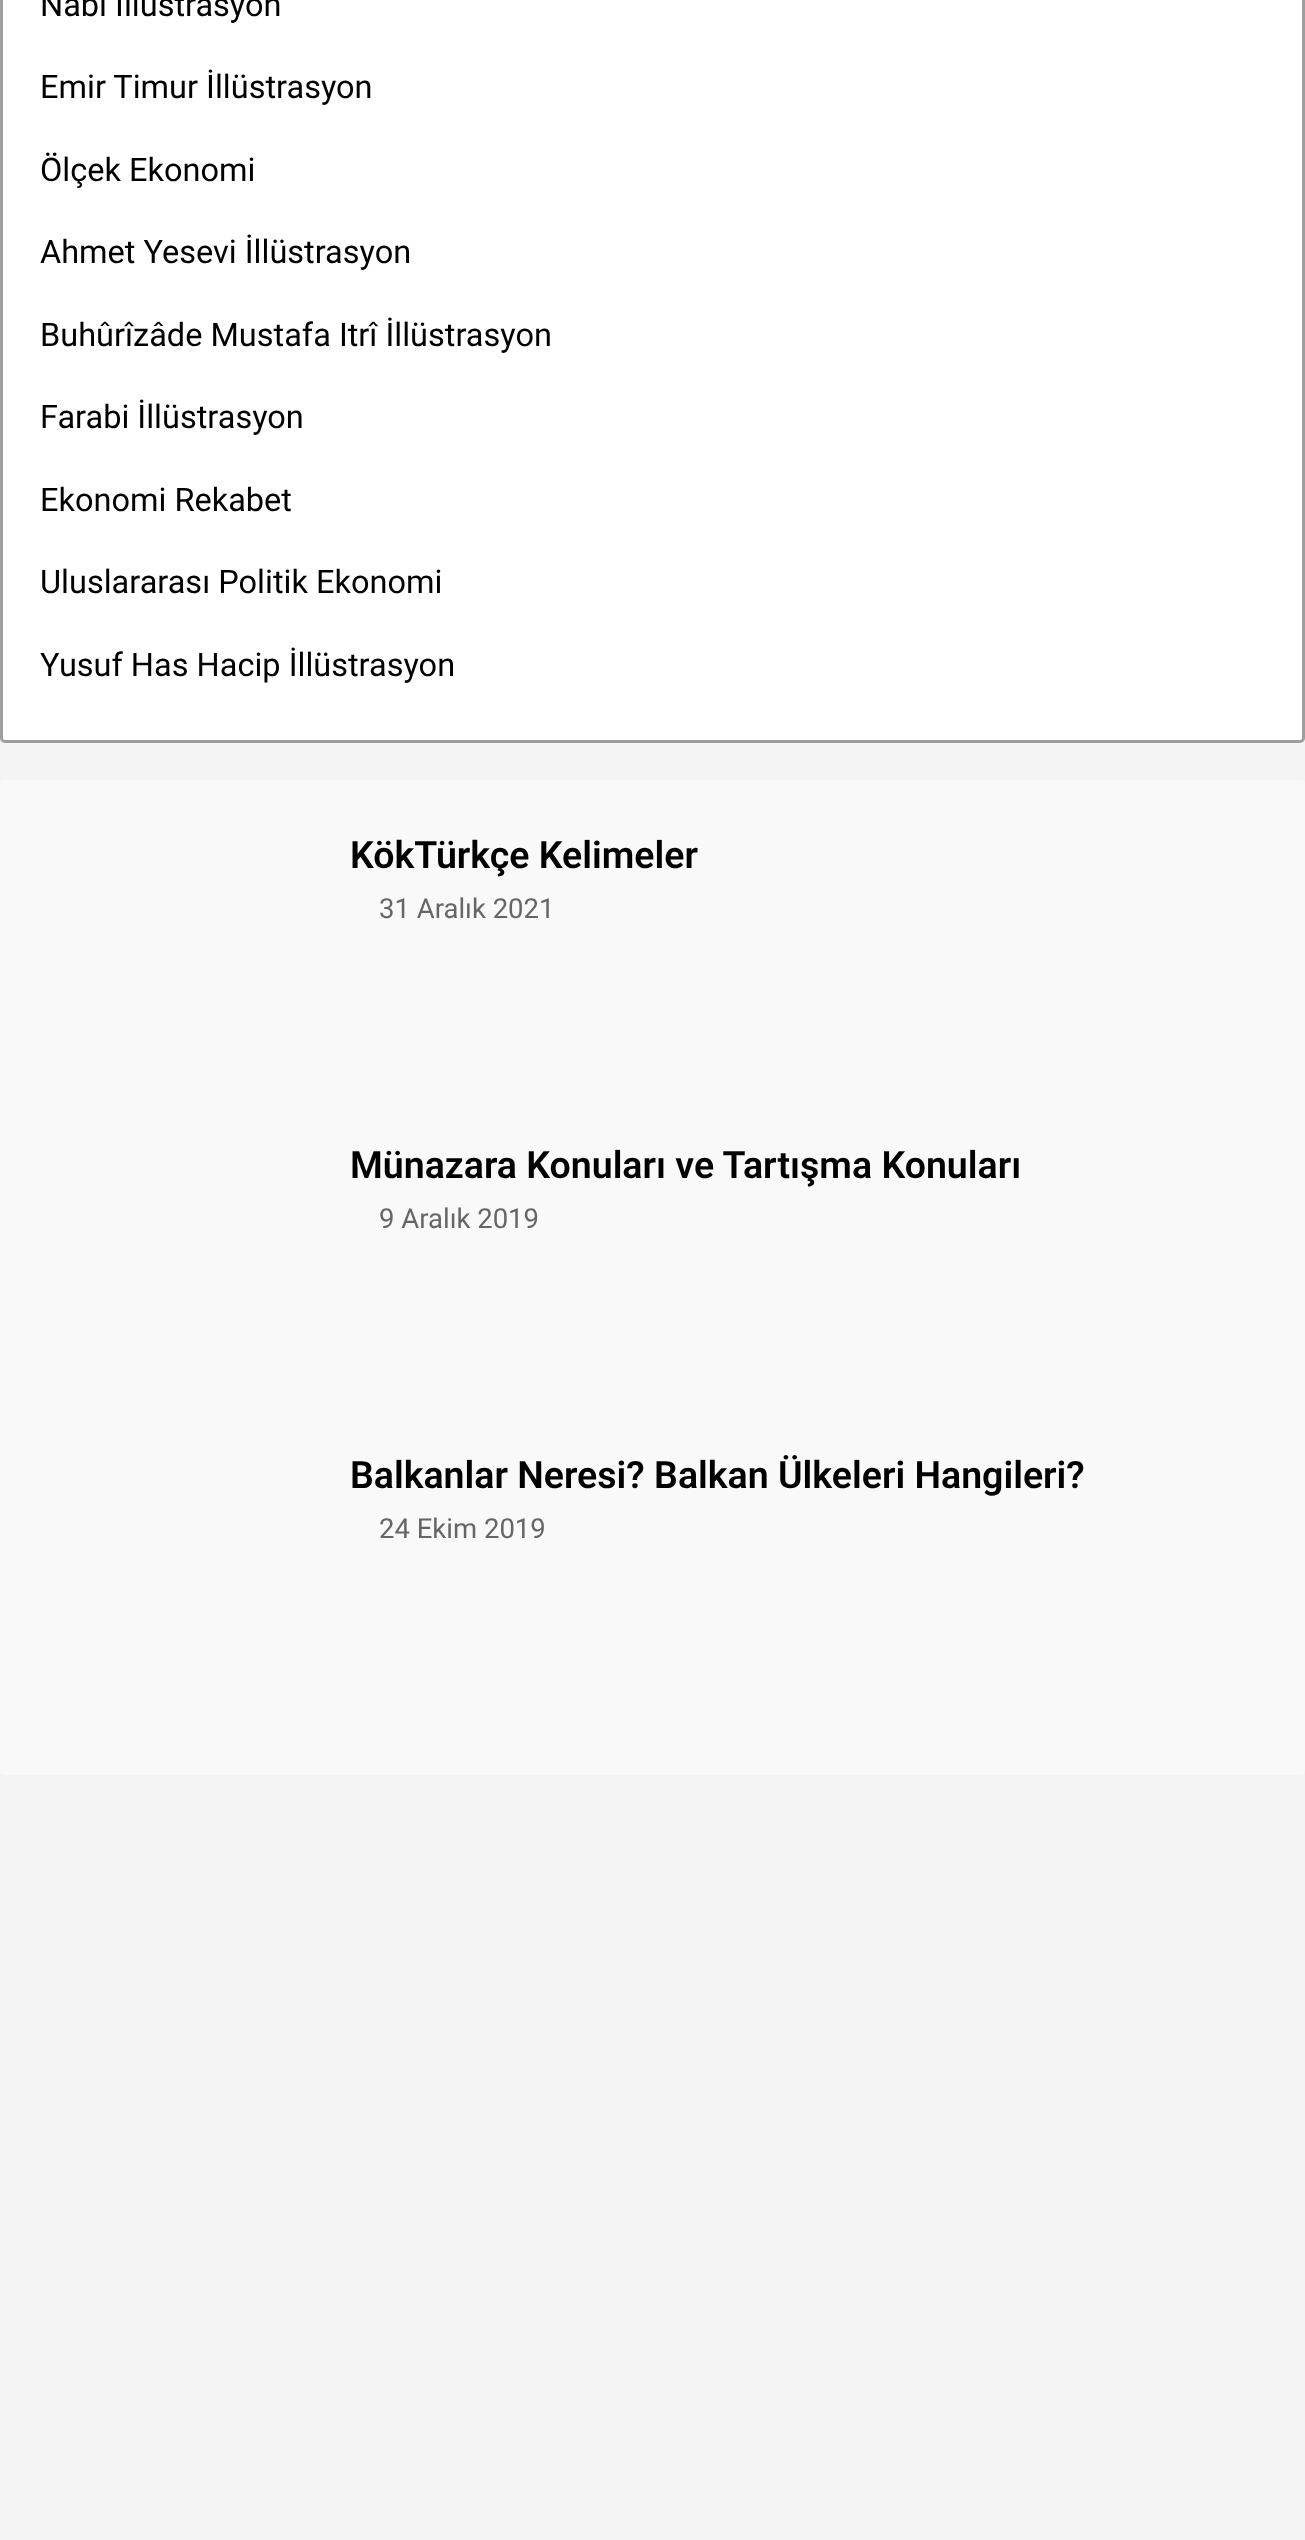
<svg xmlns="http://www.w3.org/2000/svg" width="1305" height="2540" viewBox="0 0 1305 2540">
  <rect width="100%" height="100%" fill="#f4f4f4"/>
  <rect x="1.5" y="-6.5" width="1302" height="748" rx="3.5" fill="#fff" stroke="#9e9e9e" stroke-width="3"/>
  <rect y="780" width="1305" height="995" rx="5" fill="#f9f9f9"/>
  <g font-family="Roboto" font-size="32.5" fill="#000">
    <text x="40" y="16">Nabi İllüstrasyon</text>
    <text x="40" y="98">Emir Timur İllüstrasyon</text>
    <text x="40" y="181">Ölçek Ekonomi</text>
    <text x="40" y="263">Ahmet Yesevi İllüstrasyon</text>
    <text x="40" y="346">Buhûrîzâde Mustafa Itrî İllüstrasyon</text>
    <text x="40" y="428">Farabi İllüstrasyon</text>
    <text x="40" y="511">Ekonomi Rekabet</text>
    <text x="40" y="593">Uluslararası Politik Ekonomi</text>
    <text x="40" y="676">Yusuf Has Hacip İllüstrasyon</text>
  </g>
  <text x="350" y="868" font-family="Roboto" font-size="37.5" font-weight="600" fill="#000">KökTürkçe Kelimeler</text>
  <text x="379" y="918" font-family="Roboto" font-size="27.5" fill="#666">31 Aralık 2021</text>
  <text x="350" y="1178" font-family="Roboto" font-size="37.5" font-weight="600" fill="#000">Münazara Konuları ve Tartışma Konuları</text>
  <text x="379" y="1228" font-family="Roboto" font-size="27.5" fill="#666">9 Aralık 2019</text>
  <text x="350" y="1488" font-family="Roboto" font-size="37.5" font-weight="600" fill="#000">Balkanlar Neresi? Balkan Ülkeleri Hangileri?</text>
  <text x="379" y="1538" font-family="Roboto" font-size="27.5" fill="#666">24 Ekim 2019</text>
</svg>
